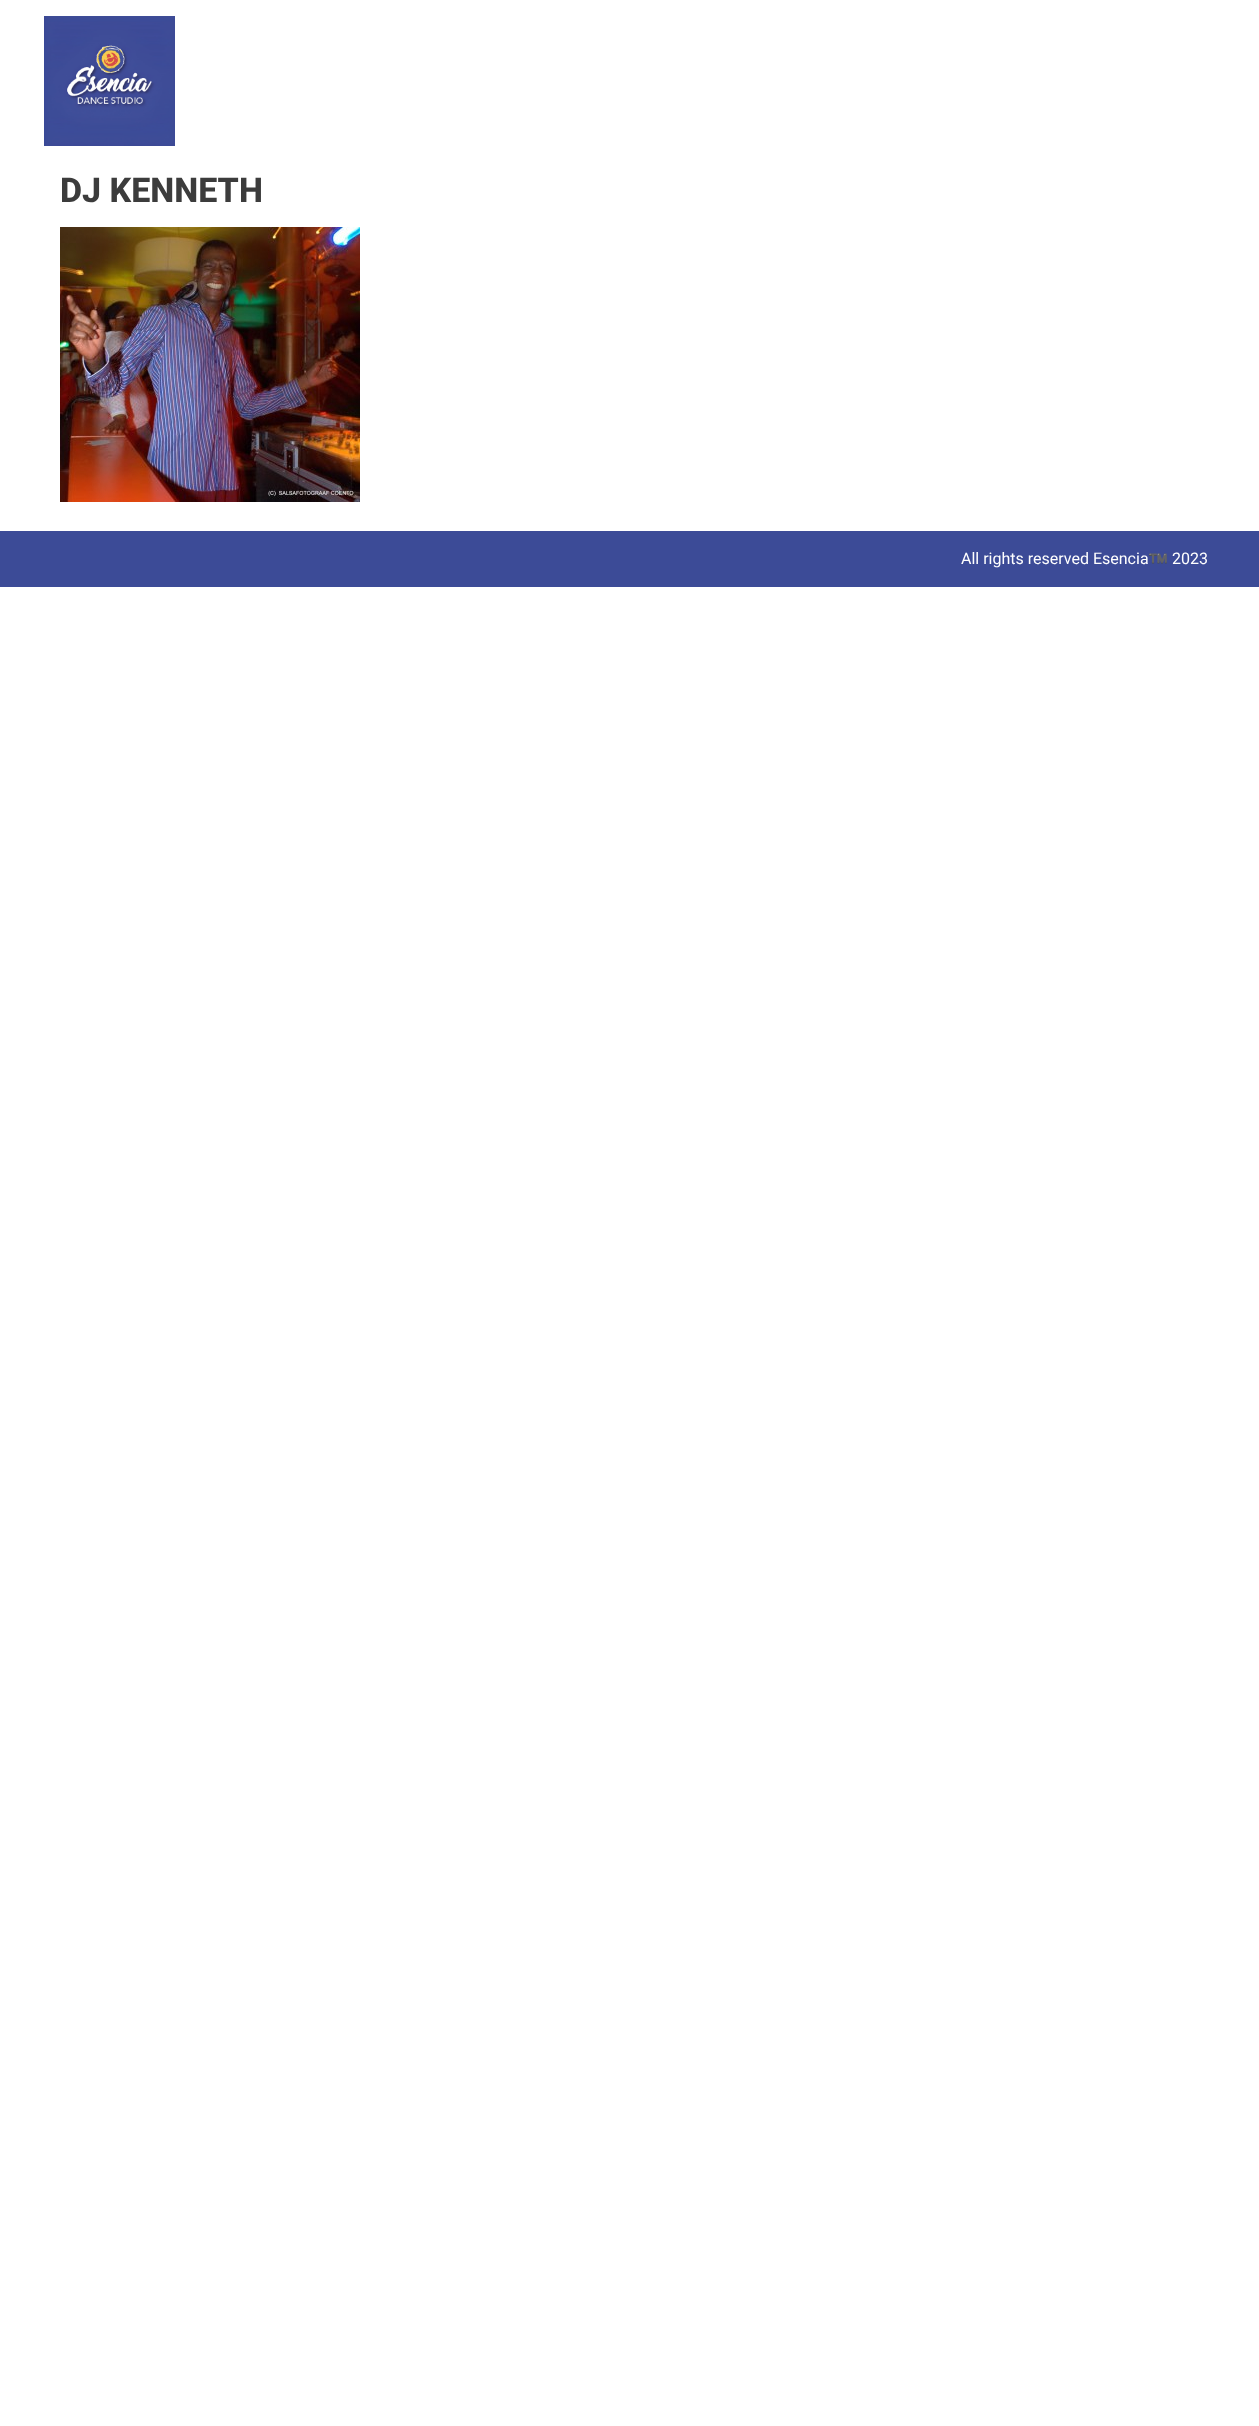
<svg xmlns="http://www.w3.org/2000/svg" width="1259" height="2426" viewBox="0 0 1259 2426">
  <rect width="100%" height="100%" fill="#fff"/>
  <image x="44" y="16" width="131" height="130" href="img/1.png"/>
  <image x="60" y="227" width="300" height="275" href="img/2.png"/>
  <path d="M0 531h1259v56H0z" fill="#3c4b97"/>
  <text x="60" y="202" font-family="Roboto" font-size="34" font-weight="800" fill="#3c3c3c">DJ KENNETH</text>
  <text x="961" y="564" font-family="Roboto" font-size="16" fill="#fff">All rights reserved Esencia</text>
  <text x="1148" y="564" font-family="Noto Color Emoji" font-size="16" fill="#fff">™️</text>
  <text x="1172" y="564" font-family="Roboto" font-size="16" fill="#fff">2023</text>
</svg>
